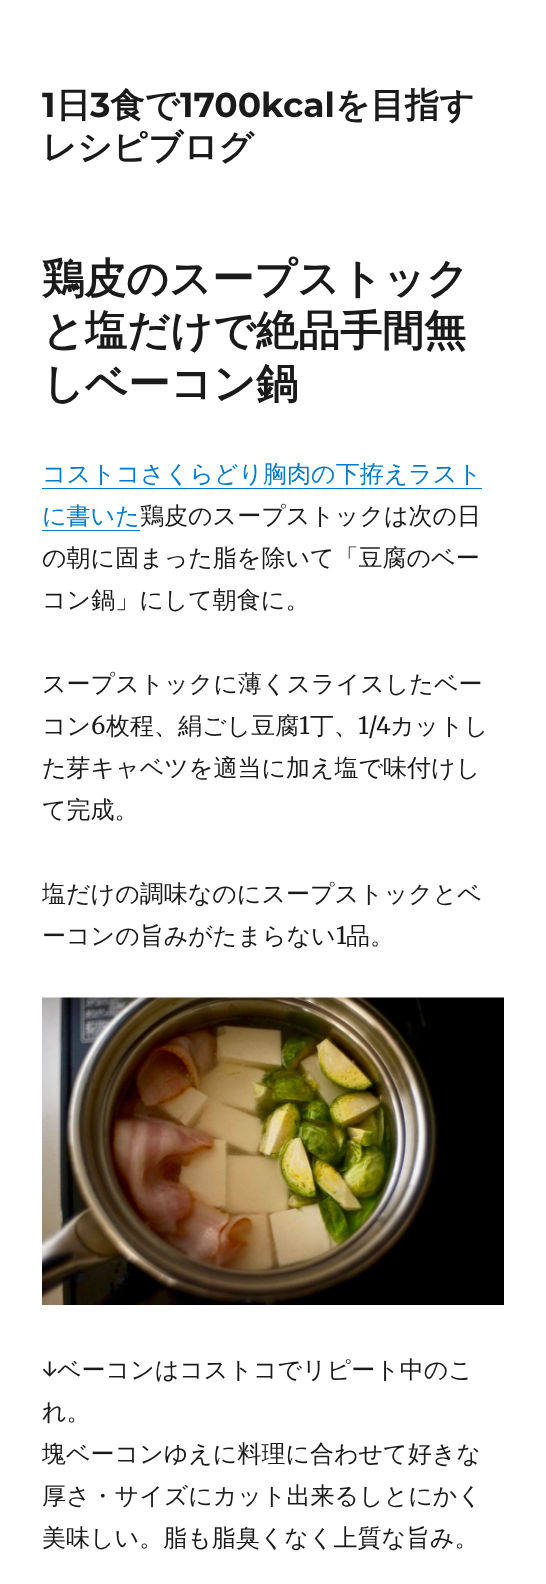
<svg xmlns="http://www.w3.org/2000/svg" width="546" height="1584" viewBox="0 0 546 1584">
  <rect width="100%" height="100%" fill="#fff"/>
  <path d="M42 488V489H482V459V488Z" fill="#007acc"/>
  <path d="M42 530V531H140V501V530Z" fill="#007acc"/>
  <image x="42" y="997" width="462" height="308" href="img/1.png"/>
  <text x="42" y="117" font-family="Montserrat" font-size="34.5" font-weight="bold" fill="#1a1a1a">1</text>
  <text x="56" y="117" font-family="WenQuanYi Zen Hei" font-size="34.5" font-weight="bold" fill="#1a1a1a">日</text>
  <text x="90" y="117" font-family="Montserrat" font-size="34.5" font-weight="bold" fill="#1a1a1a">3</text>
  <text x="110" y="117" font-family="WenQuanYi Zen Hei" font-size="34.5" font-weight="bold" fill="#1a1a1a">食で</text>
  <text x="180" y="117" font-family="Montserrat" font-size="34.5" font-weight="bold" fill="#1a1a1a">1700kcal</text>
  <g font-family="WenQuanYi Zen Hei" font-size="34.5" font-weight="bold" fill="#1a1a1a">
    <text x="335" y="117">を目指す</text>
    <text x="42" y="159">レシピブログ</text>
  </g>
  <g font-family="WenQuanYi Zen Hei" font-size="42" font-weight="bold" fill="#1a1a1a">
    <text x="42" y="293">鶏皮のスープストック</text>
    <text x="42" y="345">と塩だけで絶品手間無</text>
    <text x="42" y="398">しベーコン鍋</text>
  </g>
  <g font-family="WenQuanYi Zen Hei" font-size="24" font-weight="500" fill="#007acc">
    <text x="42" y="482">コストコさくらどり胸肉の下拵えラスト</text>
    <text x="42" y="524">に書いた</text>
  </g>
  <g font-family="WenQuanYi Zen Hei" font-size="24" font-weight="500" fill="#1a1a1a">
    <text x="140" y="524">鶏皮のスープストックは次の日</text>
    <text x="42" y="566">の朝に固まった脂を除いて「豆腐のベー</text>
    <text x="42" y="608">コン鍋」にして朝食に。</text>
    <text x="42" y="692">スープストックに薄くスライスしたベー</text>
    <text x="42" y="734">コン</text>
  </g>
  <text x="91" y="734" font-family="Merriweather" font-size="24" fill="#1a1a1a">6</text>
  <text x="106" y="734" font-family="WenQuanYi Zen Hei" font-size="24" font-weight="500" fill="#1a1a1a">枚程、絹ごし豆腐</text>
  <text x="299" y="734" font-family="Merriweather" font-size="24" fill="#1a1a1a">1</text>
  <text x="310" y="734" font-family="WenQuanYi Zen Hei" font-size="24" font-weight="500" fill="#1a1a1a">丁、</text>
  <text x="358" y="734" font-family="Merriweather" font-size="24" fill="#1a1a1a">1/4</text>
  <g font-family="WenQuanYi Zen Hei" font-size="24" font-weight="500" fill="#1a1a1a">
    <text x="390" y="734">カットし</text>
    <text x="42" y="776">た芽キャベツを適当に加え塩で味付けし</text>
    <text x="42" y="818">て完成。</text>
    <text x="42" y="902">塩だけの調味なのにスープストックとベ</text>
    <text x="42" y="944">ーコンの旨みがたまらない</text>
  </g>
  <text x="336" y="944" font-family="Merriweather" font-size="24" fill="#1a1a1a">1</text>
  <text x="346" y="944" font-family="WenQuanYi Zen Hei" font-size="24" font-weight="500" fill="#1a1a1a">品。</text>
  <text x="42" y="1378" font-family="Merriweather" font-size="24" fill="#1a1a1a">↓</text>
  <g font-family="WenQuanYi Zen Hei" font-size="24" font-weight="500" fill="#1a1a1a">
    <text x="57" y="1378">ベーコンはコストコでリピート中のこ</text>
    <text x="42" y="1420">れ。</text>
    <text x="42" y="1462">塊ベーコンゆえに料理に合わせて好きな</text>
    <text x="42" y="1504">厚さ・サイズにカット出来るしとにかく</text>
    <text x="42" y="1546">美味しい。脂も脂臭くなく上質な旨み。</text>
  </g>
</svg>
